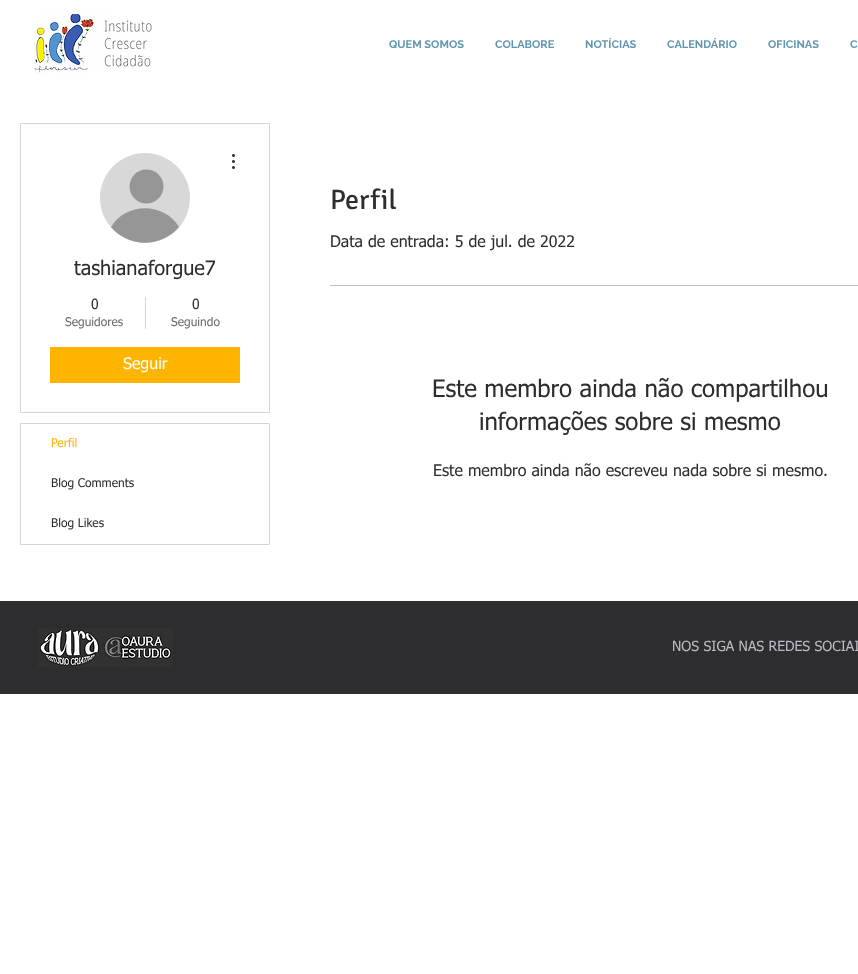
<svg xmlns="http://www.w3.org/2000/svg" width="858" height="974" viewBox="0 0 858 974">
  <rect width="100%" height="100%" fill="#fff"/>
  <image x="34" y="14" width="118" height="59" href="img/1.png"/>
  <path d="M20.5 123.5h249v289H20.5z" fill="none" stroke="#d5d5d5"/>
  <circle cx="145" cy="198" r="45" fill="#d8d8d8"/>
  <circle cx="146.5" cy="186.5" r="17" fill="#969696"/>
  <path d="M179 227C161 248 129 248 111 227C126 202 164 202 179 227Z" fill="#969696"/>
  <image x="232" y="154" width="3" height="15" href="img/2.png"/>
  <path d="M145 297h1v32H145z" fill="#d5d5d5"/>
  <path d="M50 347h190v36H50z" fill="#ffb400"/>
  <path d="M20.5 423.5h249v121H20.5z" fill="none" stroke="#d5d5d5"/>
  <path d="M330 285h528v1H330z" fill="#c0c0c1"/>
  <path d="M0 601h858v93H0z" fill="#2d2d2f"/>
  <image x="38" y="628" width="135" height="39" href="img/3.png"/>
  <g font-family="Raleway" font-size="11" font-weight="bold" fill="#6096b3">
    <text x="389" y="48">QUEM SOMOS</text>
    <text x="495" y="48">COLABORE</text>
    <text x="585" y="48">NOTÍCIAS</text>
    <text x="667" y="48">CALENDÁRIO</text>
    <text x="768" y="48">OFICINAS</text>
    <text x="850" y="48">C</text>
  </g>
  <text x="74" y="275" font-family="tahoma" font-size="20" fill="#2d2d2f">tashianaforgue7</text>
  <text x="91" y="309" font-family="tahoma" font-size="14" fill="#2d2d2f">0</text>
  <text x="65" y="326" font-family="tahoma" font-size="12" fill="#6c6c6d">Seguidores</text>
  <text x="192" y="309" font-family="tahoma" font-size="14" fill="#2d2d2f">0</text>
  <text x="171" y="326" font-family="tahoma" font-size="12" fill="#6c6c6d">Seguindo</text>
  <text x="123" y="369" font-family="tahoma" font-size="16" fill="#fff">Seguir</text>
  <text x="51" y="447" font-family="tahoma" font-size="12" fill="#ffb400">Perfil</text>
  <g font-family="tahoma" font-size="12" fill="#2d2d2f">
    <text x="51" y="487">Blog Comments</text>
    <text x="51" y="527">Blog Likes</text>
  </g>
  <text x="330" y="209" font-family="Signika" font-size="28" fill="#2d2d2f">Perfil</text>
  <text x="330" y="247" font-family="tahoma" font-size="16" fill="#2d2d2f">Data de entrada: 5 de jul. de 2022</text>
  <g font-family="tahoma" font-size="24" fill="#2d2d2f">
    <text x="432" y="397">Este membro ainda não compartilhou</text>
    <text x="479" y="430">informações sobre si mesmo</text>
  </g>
  <text x="433" y="476" font-family="tahoma" font-size="16" fill="#2d2d2f">Este membro ainda não escreveu nada sobre si mesmo.</text>
  <text x="672" y="651" font-family="tahoma" font-size="14" fill="#b8bbc1">NOS SIGA NAS REDES SOCIAI</text>
</svg>
